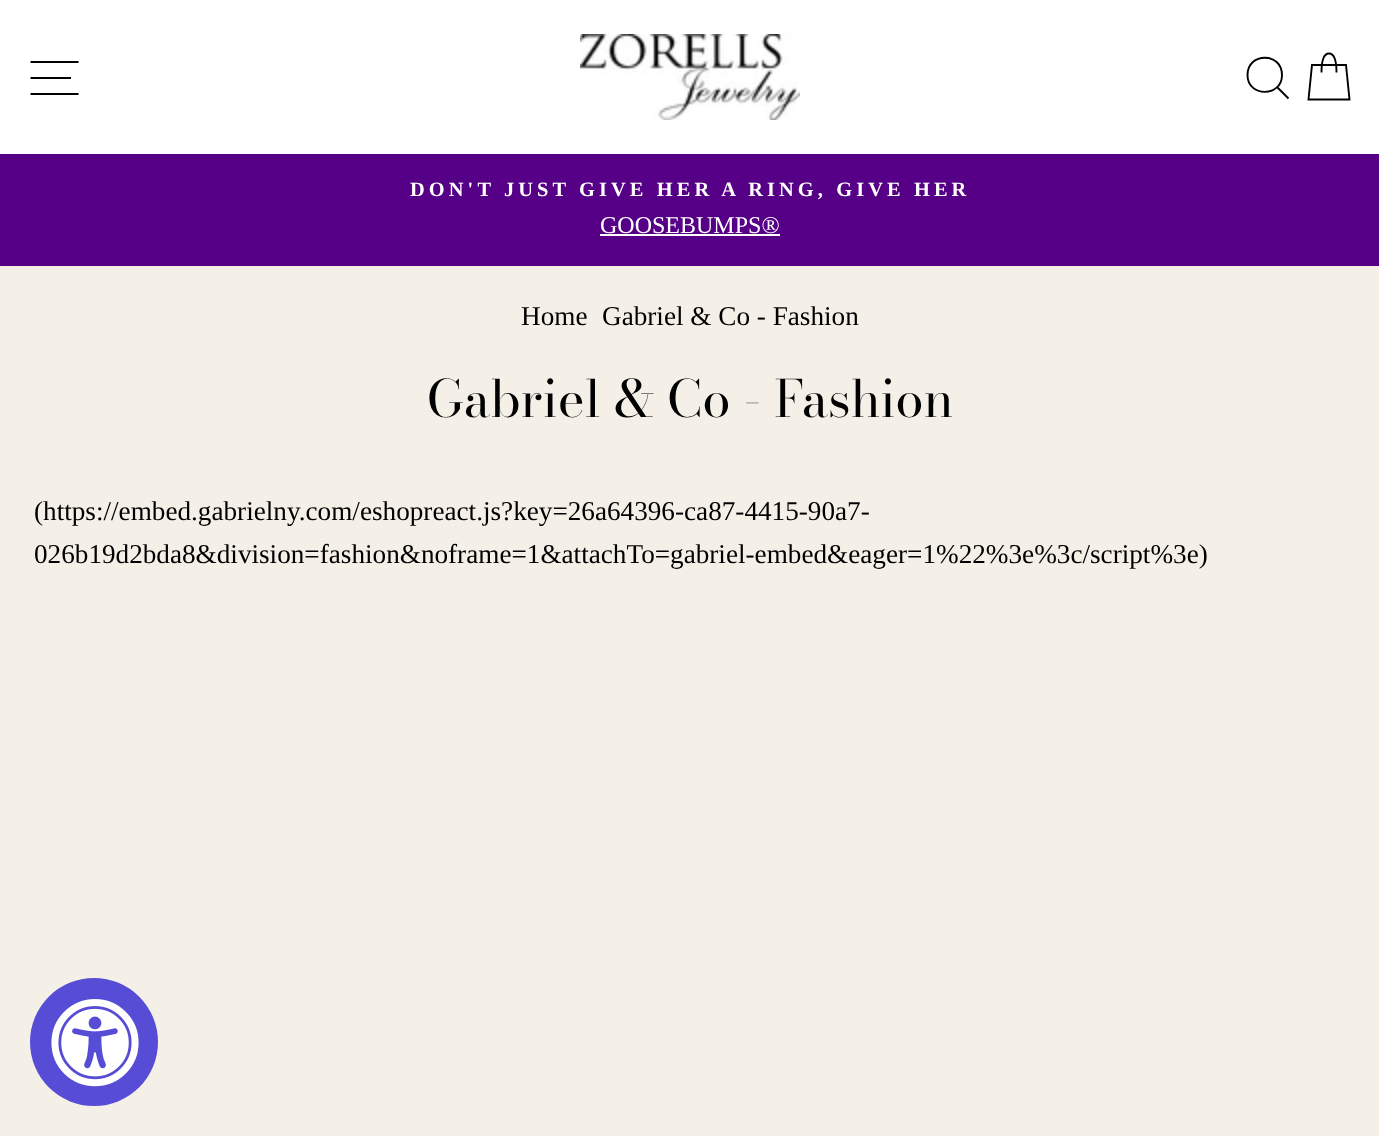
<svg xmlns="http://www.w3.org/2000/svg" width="1379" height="1136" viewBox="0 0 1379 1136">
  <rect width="100%" height="100%" fill="#f4f0e7"/>
  <path d="M0 0h1379v154H0z" fill="#fff"/>
  <path d="M30.5 62H78.5M30.5 78H71M30.5 94H78.5" fill="none" stroke="#000" stroke-width="1.9"/>
  <image x="580" y="34" width="220" height="86" href="img/1.png"/>
  <path d="M1282 75C1282 97.5 1247.5 97.5 1247.5 75C1247.5 52 1282 52 1282 75ZM1288.5 98.5L1277.5 87.5" fill="none" stroke="#000" stroke-width="1.9"/>
  <path d="M1321.5 72.5C1321.5 57.5 1325 53.5 1329 53.5C1333 53.5 1336.5 57.5 1336.5 72.5M1312 65H1346L1349.5 99.5H1308.5Z" fill="none" stroke="#000" stroke-width="1.9"/>
  <path d="M0 154h1379v112H0z" fill="#560087"/>
  <path d="M600 234h180v2H600z" fill="#fff"/>
  <circle cx="94" cy="1042" r="64" fill="#574cd5"/>
  <image x="51" y="999" width="88" height="88" href="img/2.png"/>
  <text x="410" y="196" font-family="Liberation Serif" font-size="20.4" font-weight="bold" letter-spacing="4.1" fill="#fff">DON'T JUST GIVE HER A RING, GIVE HER</text>
  <text x="600" y="233" font-family="Liberation Serif" font-size="24" fill="#fff">GOOSEBUMPS®</text>
  <g font-family="Liberation Serif" font-size="27.2" fill="#000">
    <text x="521" y="325">Home</text>
    <text x="602" y="325">Gabriel &amp; Co - Fashion</text>
  </g>
  <text x="427" y="417" font-family="Bodoni Moda" font-size="51" fill="#000">Gabriel &amp; Co - Fashion</text>
  <g font-family="Liberation Serif" font-size="27.2" fill="#000">
    <text x="34" y="520">(https://embed.gabrielny.com/eshopreact.js?key=26a64396-ca87-4415-90a7-</text>
    <text x="34" y="563">026b19d2bda8&amp;division=fashion&amp;noframe=1&amp;attachTo=gabriel-embed&amp;eager=1%22%3e%3c/script%3e)</text>
  </g>
</svg>
